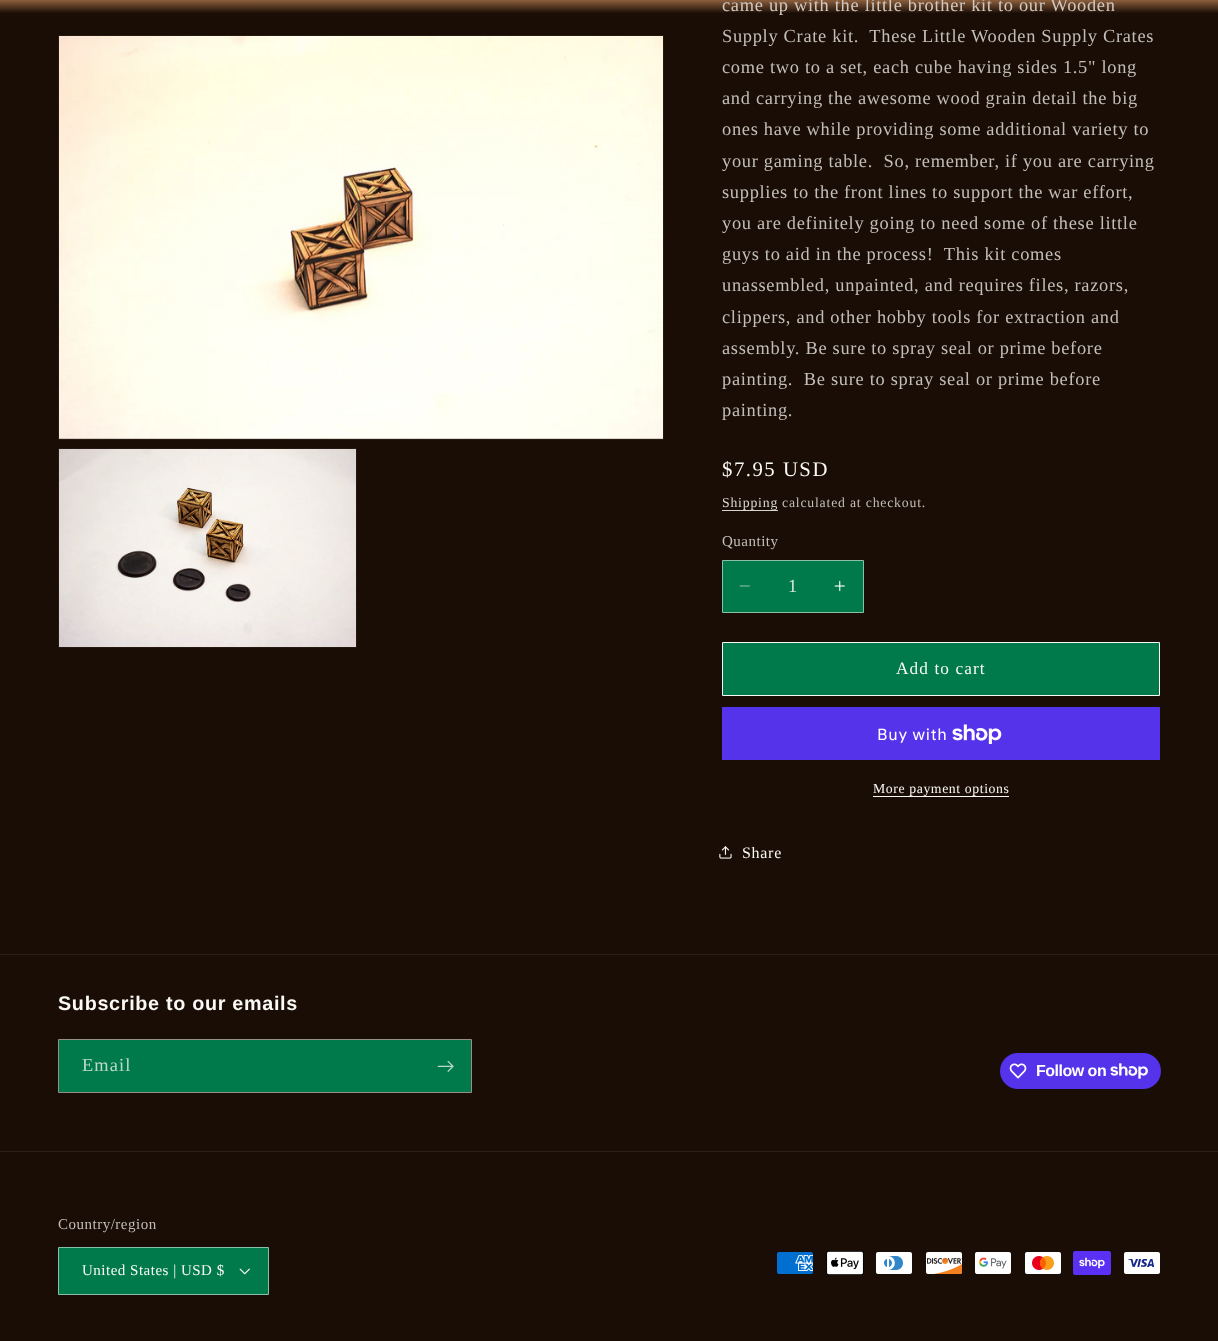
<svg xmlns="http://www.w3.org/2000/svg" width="1218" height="1341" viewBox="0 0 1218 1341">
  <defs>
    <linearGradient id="g1" gradientUnits="userSpaceOnUse" x1="609" y1="1341" x2="609" y2="0"><stop offset="0.99" stop-color="#1a0d05"/><stop offset="1" stop-color="#8c5f3d"/></linearGradient>
  </defs>
  <rect width="100%" height="100%" fill="#fff"/>
  <path d="M0 0h1218v1341H0z" fill="url(#g1)"/>
  <path d="M58.5 35.5h605v404H58.5z" fill="none" stroke="#251911"/>
  <image x="59" y="36" width="604" height="403" href="img/1.png"/>
  <path d="M58.5 448.5h298v199H58.5z" fill="none" stroke="#251911"/>
  <image x="59" y="449" width="297" height="198" href="img/2.png"/>
  <path d="M722 510h56v1H722z" fill="#d8d6d2"/>
  <path d="M723 561h140v51H723z" fill="#007a4b"/>
  <image x="739" y="585" width="11" height="2" href="img/3.png"/>
  <image x="834" y="580" width="11" height="12" href="img/4.png"/>
  <path d="M722.5 560.5h141v52H722.5z" fill="none" stroke="#8ac0a9"/>
  <path d="M723 643h436v52H723z" fill="#007a4b"/>
  <path d="M722.5 642.5h437v53H722.5z" fill="none" stroke="#faf9f6"/>
  <path d="M722 707h438v53H722z" fill="#5433eb"/>
  <image x="952" y="724" width="50" height="20" href="img/5.png"/>
  <path d="M873 796h136v1H873z" fill="#faf9f6"/>
  <image x="719" y="846" width="13" height="13" href="img/6.png"/>
  <path d="M0 954h1218v1H0z" fill="#2c2018"/>
  <path d="M59 1040h412v52H59z" fill="#007a4b"/>
  <path d="M58.5 1039.5h413v53H58.5z" fill="none" stroke="#958f8a"/>
  <image x="437" y="1060" width="17" height="12" href="img/7.png"/>
  <rect x="1000" y="1053" width="161" height="36" rx="18" fill="#5433eb"/>
  <image x="1009" y="1063" width="18" height="16" href="img/8.png"/>
  <image x="1110" y="1063" width="38" height="16" href="img/9.png"/>
  <path d="M0 1151h1218v1H0z" fill="#2c2018"/>
  <path d="M59 1248h209v46H59z" fill="#007a4b"/>
  <image x="239" y="1268" width="11" height="7" href="img/10.png"/>
  <path d="M58.5 1247.5h210v47H58.5z" fill="none" stroke="#8ac0a9"/>
  <image x="777" y="1252" width="36" height="22" href="img/11.png"/>
  <image x="826" y="1251" width="38" height="24" href="img/12.png"/>
  <image x="876" y="1252" width="36" height="22" href="img/13.png"/>
  <image x="926" y="1252" width="36" height="22" href="img/14.png"/>
  <image x="975" y="1252" width="36" height="22" href="img/15.png"/>
  <image x="1025" y="1252" width="36" height="22" href="img/16.png"/>
  <image x="1073" y="1251" width="38" height="24" href="img/17.png"/>
  <image x="1124" y="1252" width="36" height="22" href="img/18.png"/>
  <text x="722" y="11" font-family="Liberation Serif" font-size="18.4" letter-spacing="0.7" fill="#d1c9c1">came up with the little brother kit to our Wooden</text>
  <g font-family="Liberation Serif" font-size="18.4" letter-spacing="0.7" fill="#c2beba">
    <text x="722" y="42" xml:space="preserve">Supply Crate kit.  These Little Wooden Supply Crates</text>
    <text x="722" y="73">come two to a set, each cube having sides 1.5" long</text>
    <text x="722" y="104">and carrying the awesome wood grain detail the big</text>
    <text x="722" y="135">ones have while providing some additional variety to</text>
    <text x="722" y="167" xml:space="preserve">your gaming table.  So, remember, if you are carrying</text>
    <text x="722" y="198">supplies to the front lines to support the war effort,</text>
    <text x="722" y="229">you are definitely going to need some of these little</text>
    <text x="722" y="260" xml:space="preserve">guys to aid in the process!  This kit comes</text>
    <text x="722" y="291">unassembled, unpainted, and requires files, razors,</text>
    <text x="722" y="323">clippers, and other hobby tools for extraction and</text>
    <text x="722" y="354">assembly. Be sure to spray seal or prime before</text>
    <text x="722" y="385" xml:space="preserve">painting.  Be sure to spray seal or prime before</text>
    <text x="722" y="416">painting.</text>
  </g>
  <text x="722" y="476" font-family="Liberation Serif" font-size="20.75" letter-spacing="1.5" fill="#faf9f6">$7.95 USD</text>
  <text x="722" y="507" font-family="Liberation Serif" font-size="13.75" letter-spacing="0.8" fill="#d8d6d2">Shipping</text>
  <text x="782" y="507" font-family="Liberation Serif" font-size="13.75" letter-spacing="0.8" fill="#c2beba">calculated at checkout.</text>
  <text x="722" y="546" font-family="Liberation Serif" font-size="15" letter-spacing="0.5" fill="#c2beba">Quantity</text>
  <text x="788" y="592" font-family="Liberation Serif" font-size="18.4" fill="#d5e6dc">1</text>
  <text x="896" y="674" font-family="Liberation Serif" font-size="17.25" letter-spacing="1.1" fill="#faf9f6">Add to cart</text>
  <text x="877" y="740" font-family="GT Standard" font-size="16" letter-spacing="0.7" fill="#fff">Buy with</text>
  <text x="873" y="793" font-family="Liberation Serif" font-size="13.75" letter-spacing="0.6" fill="#faf9f6">More payment options</text>
  <text x="742" y="858" font-family="Liberation Serif" font-size="16" letter-spacing="0.7" fill="#faf9f6">Share</text>
  <text x="58" y="1010" font-family="Liberation Sans" font-size="19.75" font-weight="bold" letter-spacing="0.7" fill="#faf9f6">Subscribe to our emails</text>
  <text x="82" y="1071" font-family="Liberation Serif" font-size="18.4" letter-spacing="1.1" fill="#bcd9cb">Email</text>
  <text x="1036" y="1076" font-family="Liberation Sans" font-size="16" font-weight="bold" letter-spacing="-0.5" fill="#fff">Follow on</text>
  <text x="58" y="1229" font-family="Liberation Serif" font-size="15" letter-spacing="0.5" fill="#c2beba">Country/region</text>
  <text x="82" y="1275" font-family="Liberation Serif" font-size="15" letter-spacing="0.5" fill="#faf9f6">United States | USD $</text>
</svg>
